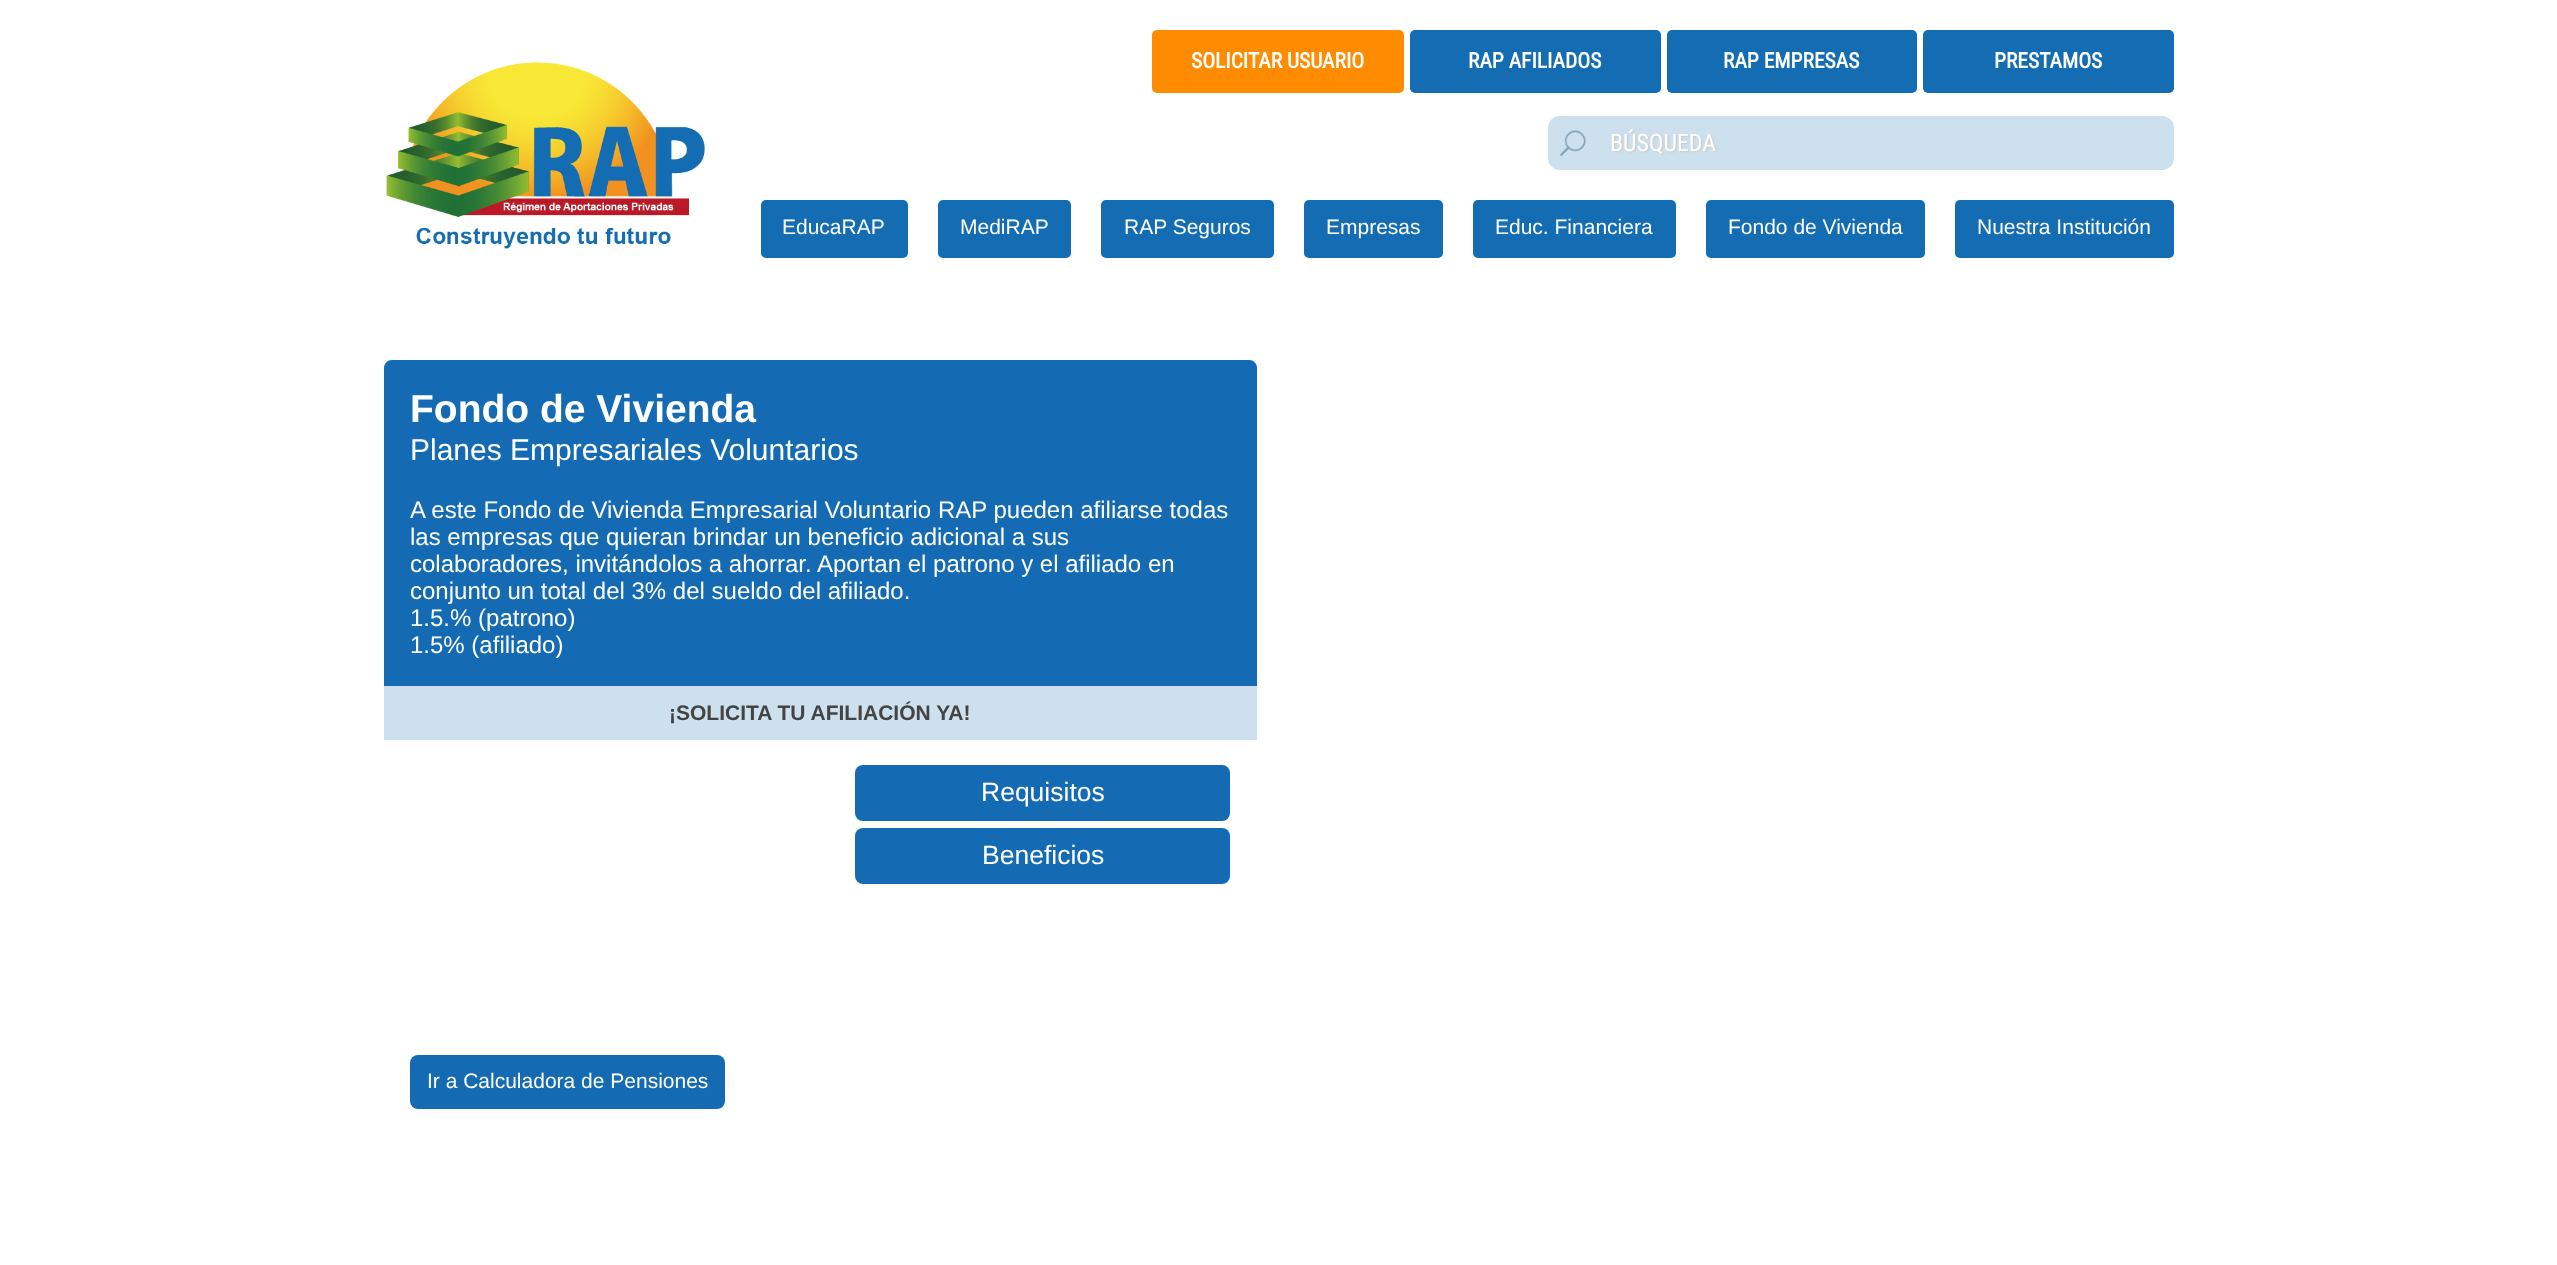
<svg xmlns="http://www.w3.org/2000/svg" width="2557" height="1265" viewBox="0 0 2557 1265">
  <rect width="100%" height="100%" fill="#fff"/>
  <image x="386" y="62" width="319" height="187" href="img/1.png"/>
  <rect x="1152" y="30" width="252" height="63" rx="5" fill="#ff8c00"/>
  <rect x="1410" y="30" width="251" height="63" rx="5" fill="#146db2"/>
  <rect x="1667" y="30" width="250" height="63" rx="5" fill="#146db2"/>
  <rect x="1923" y="30" width="251" height="63" rx="5" fill="#146db2"/>
  <rect x="1548" y="116" width="626" height="54" rx="12" fill="#cde0ee"/>
  <image x="1560" y="129" width="158" height="27" href="img/2.png"/>
  <rect x="761" y="200" width="147" height="58" rx="5" fill="#146db2"/>
  <rect x="938" y="200" width="133" height="58" rx="5" fill="#146db2"/>
  <rect x="1101" y="200" width="173" height="58" rx="5" fill="#146db2"/>
  <rect x="1304" y="200" width="139" height="58" rx="5" fill="#146db2"/>
  <rect x="1473" y="200" width="203" height="58" rx="5" fill="#146db2"/>
  <rect x="1706" y="200" width="219" height="58" rx="5" fill="#146db2"/>
  <rect x="1955" y="200" width="219" height="58" rx="5" fill="#146db2"/>
  <path d="M392 360H1249C1253.5 360 1257 363.5 1257 368V686H384V368C384 363.5 387.5 360 392 360Z" fill="#146bb3"/>
  <path d="M384 686h873v54H384z" fill="#cde0ee"/>
  <rect x="855" y="765" width="375" height="56" rx="8" fill="#146bb3"/>
  <rect x="855" y="828" width="375" height="56" rx="8" fill="#146bb3"/>
  <rect x="410" y="1055" width="315" height="54" rx="8" fill="#146bb3"/>
  <g font-family="Roboto Condensed" font-size="21.5" font-weight="bold" fill="#fff">
    <text x="1191" y="68">SOLICITAR USUARIO</text>
    <text x="1468" y="68">RAP AFILIADOS</text>
    <text x="1723" y="68">RAP EMPRESAS</text>
    <text x="1994" y="68">PRESTAMOS</text>
  </g>
  <text x="1610" y="151" font-family="Roboto Condensed" font-size="24" fill="#fff">BÚSQUEDA</text>
  <g font-family="Liberation Sans" font-size="21" fill="#fff">
    <text x="782" y="234">EducaRAP</text>
    <text x="960" y="234">MediRAP</text>
    <text x="1124" y="234">RAP Seguros</text>
    <text x="1326" y="234">Empresas</text>
    <text x="1495" y="234">Educ. Financiera</text>
    <text x="1728" y="234">Fondo de Vivienda</text>
    <text x="1977" y="234">Nuestra Institución</text>
  </g>
  <text x="410" y="422" font-family="Liberation Sans" font-size="39" font-weight="bold" fill="#fff">Fondo de Vivienda</text>
  <text x="410" y="460" font-family="Liberation Sans" font-size="30" fill="#fff">Planes Empresariales Voluntarios</text>
  <g font-family="Liberation Sans" font-size="24" fill="#fff">
    <text x="410" y="518">A este Fondo de Vivienda Empresarial Voluntario RAP pueden afiliarse todas</text>
    <text x="410" y="545">las empresas que quieran brindar un beneficio adicional a sus</text>
    <text x="410" y="572">colaboradores, invitándolos a ahorrar.</text>
    <text x="817" y="572">Aportan el patrono y el afiliado en</text>
    <text x="410" y="599">conjunto un total del 3% del sueldo del afiliado.</text>
    <text x="410" y="626">1.5.% (patrono)</text>
    <text x="410" y="653">1.5% (afiliado)</text>
  </g>
  <text x="669" y="720" font-family="Liberation Sans" font-size="21" font-weight="bold" fill="#444">¡SOLICITA TU AFILIACIÓN YA!</text>
  <g font-family="Liberation Sans" font-size="26.5" fill="#fff">
    <text x="981" y="801">Requisitos</text>
    <text x="982" y="864">Beneficios</text>
  </g>
  <text x="427" y="1088" font-family="Liberation Sans" font-size="21" fill="#fff">Ir a Calculadora de Pensiones</text>
</svg>
